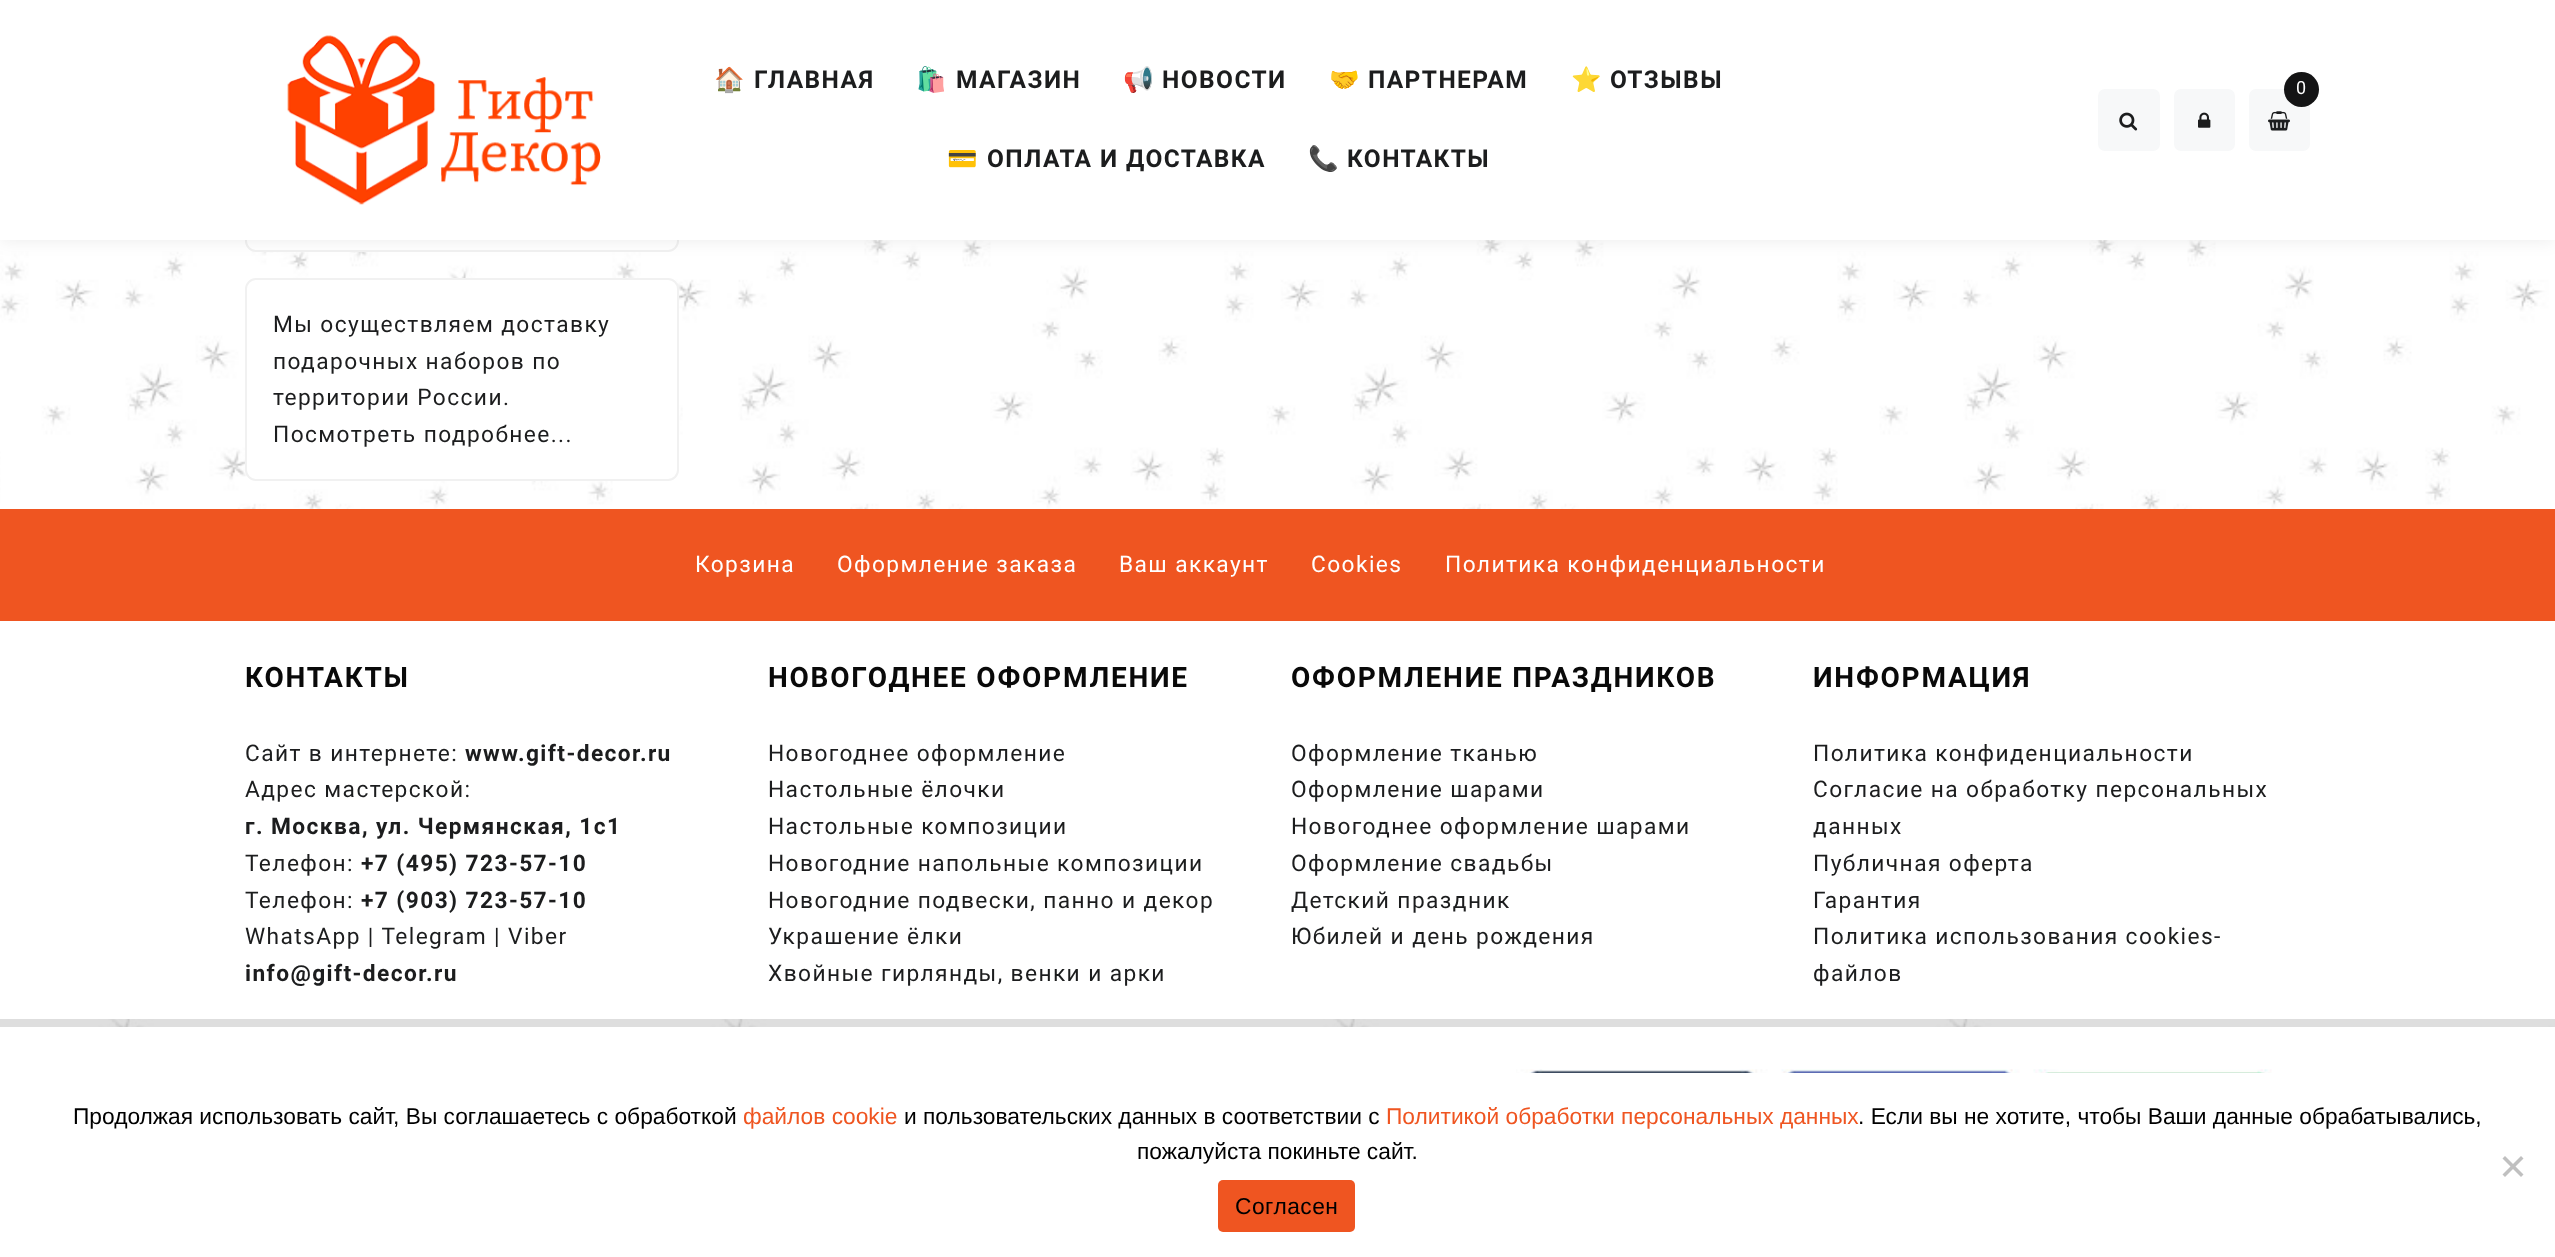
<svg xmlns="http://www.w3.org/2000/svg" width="2555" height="1257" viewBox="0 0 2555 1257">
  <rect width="100%" height="100%" fill="#fff"/>
  <image x="0" y="240" width="2555" height="787" href="img/1.png"/>
  <rect x="246" y="-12" width="432" height="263" rx="10" fill="#fff" stroke="#f1f1f1" stroke-width="2"/>
  <path d="M0 0h2555v240H0z" fill="#00000014" filter="blur(9px)"/>
  <path d="M0 0h2555v240H0z" fill="#fff"/>
  <image x="287" y="35" width="314" height="170" href="img/2.png"/>
  <rect x="2098" y="89" width="62" height="62" rx="7" fill="#f7f8f9"/>
  <image x="2119" y="112" width="19" height="19" href="img/3.png"/>
  <rect x="2174" y="89" width="61" height="62" rx="7" fill="#f7f8f9"/>
  <image x="2198" y="112" width="13" height="16" href="img/4.png"/>
  <rect x="2249" y="89" width="61" height="62" rx="7" fill="#f7f8f9"/>
  <circle cx="2301.5" cy="89.5" r="17.5" fill="#141415"/>
  <image x="2268" y="111" width="22" height="20" href="img/5.png"/>
  <rect x="246" y="279" width="432" height="201" rx="10" fill="#fff" stroke="#f1f1f1" stroke-width="2"/>
  <path d="M0 509h2555v112H0z" fill="#ef5521"/>
  <path d="M0 621h2555v398H0z" fill="#fff"/>
  <path d="M0 1019h2555v8H0z" fill="#c6c6c694"/>
  <image x="1516" y="1069" width="756" height="4" href="img/6.png"/>
  <path d="M2521 1156L2523.5 1158.5L2505 1177L2502.5 1174.5Z" fill="#c0c0c0"/>
  <path d="M2502.5 1158.5L2505 1156L2523.5 1174.5L2521 1177Z" fill="#c0c0c0"/>
  <rect x="1218" y="1180" width="137" height="52" rx="5" fill="#ef5521"/>
  <text x="714" y="88" font-family="Noto Color Emoji" font-size="24.5" letter-spacing="1.4" fill="#1c1d1e">🏠</text>
  <text x="754" y="88" font-family="Roboto" font-size="24.5" font-weight="bold" letter-spacing="1.4" fill="#1c1d1e">ГЛАВНАЯ</text>
  <text x="916" y="88" font-family="Noto Color Emoji" font-size="24.5" letter-spacing="1.4" fill="#1c1d1e">🛍️</text>
  <text x="956" y="88" font-family="Roboto" font-size="24.5" font-weight="bold" letter-spacing="1.4" fill="#1c1d1e">МАГАЗИН</text>
  <text x="1123" y="88" font-family="Noto Color Emoji" font-size="24.5" letter-spacing="1.4" fill="#1c1d1e">📢</text>
  <text x="1162" y="88" font-family="Roboto" font-size="24.5" font-weight="bold" letter-spacing="1.4" fill="#1c1d1e">НОВОСТИ</text>
  <text x="1329" y="88" font-family="Noto Color Emoji" font-size="24.5" letter-spacing="1.4" fill="#1c1d1e">🤝</text>
  <text x="1368" y="88" font-family="Roboto" font-size="24.5" font-weight="bold" letter-spacing="1.4" fill="#1c1d1e">ПАРТНЕРАМ</text>
  <text x="1571" y="88" font-family="Noto Color Emoji" font-size="24.5" letter-spacing="1.4" fill="#1c1d1e">⭐</text>
  <text x="1610" y="88" font-family="Roboto" font-size="24.5" font-weight="bold" letter-spacing="1.4" fill="#1c1d1e">ОТЗЫВЫ</text>
  <text x="947" y="167" font-family="Noto Color Emoji" font-size="24.5" letter-spacing="1.4" fill="#1c1d1e">💳</text>
  <text x="987" y="167" font-family="Roboto" font-size="24.5" font-weight="bold" letter-spacing="1.4" fill="#1c1d1e">ОПЛАТА И ДОСТАВКА</text>
  <text x="1308" y="167" font-family="Noto Color Emoji" font-size="24.5" letter-spacing="1.4" fill="#1c1d1e">📞</text>
  <text x="1347" y="167" font-family="Roboto" font-size="24.5" font-weight="bold" letter-spacing="1.4" fill="#1c1d1e">КОНТАКТЫ</text>
  <text x="2296" y="94" font-family="Roboto" font-size="18" letter-spacing="1.4" fill="#fff">0</text>
  <g font-family="Roboto" font-size="22.75" letter-spacing="1.4" fill="#1c1d1e">
    <text x="273" y="332">Мы осуществляем доставку</text>
    <text x="273" y="369">подарочных наборов по</text>
    <text x="273" y="405">территории России.</text>
    <text x="273" y="442">Посмотреть подробнее...</text>
  </g>
  <g font-family="Roboto" font-size="22.75" letter-spacing="1.4" fill="#fff">
    <text x="695" y="572">Корзина</text>
    <text x="837" y="572">Оформление заказа</text>
    <text x="1119" y="572">Ваш аккаунт</text>
    <text x="1311" y="572">Cookies</text>
    <text x="1445" y="572">Политика конфиденциальности</text>
  </g>
  <text x="245" y="687" font-family="Roboto" font-size="28" font-weight="bold" letter-spacing="1.75" fill="#090909">КОНТАКТЫ</text>
  <text x="245" y="761" font-family="Roboto" font-size="22.75" letter-spacing="1.4" fill="#1c1d1e">Сайт в интернете:</text>
  <text x="465" y="761" font-family="Roboto" font-size="22.75" font-weight="bold" letter-spacing="1.4" fill="#1c1d1e">www.gift-decor.ru</text>
  <text x="245" y="797" font-family="Roboto" font-size="22.75" letter-spacing="1.4" fill="#1c1d1e">Адрес мастерской:</text>
  <text x="245" y="834" font-family="Roboto" font-size="22.75" font-weight="bold" letter-spacing="1.4" fill="#1c1d1e">г. Москва, ул. Чермянская, 1с1</text>
  <text x="245" y="871" font-family="Roboto" font-size="22.75" letter-spacing="1.4" fill="#1c1d1e">Телефон:</text>
  <text x="361" y="871" font-family="Roboto" font-size="22.75" font-weight="bold" letter-spacing="1.4" fill="#1c1d1e">+7 (495) 723-57-10</text>
  <text x="245" y="908" font-family="Roboto" font-size="22.75" letter-spacing="1.4" fill="#1c1d1e">Телефон:</text>
  <text x="361" y="908" font-family="Roboto" font-size="22.75" font-weight="bold" letter-spacing="1.4" fill="#1c1d1e">+7 (903) 723-57-10</text>
  <text x="245" y="944" font-family="Roboto" font-size="22.75" letter-spacing="1.4" fill="#1c1d1e">WhatsApp | Telegram | Viber</text>
  <text x="245" y="981" font-family="Roboto" font-size="22.75" font-weight="bold" letter-spacing="1.4" fill="#1c1d1e">info@gift-decor.ru</text>
  <text x="768" y="687" font-family="Roboto" font-size="28" font-weight="bold" letter-spacing="1.75" fill="#090909">НОВОГОДНЕЕ ОФОРМЛЕНИЕ</text>
  <g font-family="Roboto" font-size="22.75" letter-spacing="1.4" fill="#1c1d1e">
    <text x="768" y="761">Новогоднее оформление</text>
    <text x="768" y="797">Настольные ёлочки</text>
    <text x="768" y="834">Настольные композиции</text>
    <text x="768" y="871">Новогодние напольные композиции</text>
    <text x="768" y="908">Новогодние подвески, панно и декор</text>
    <text x="768" y="944">Украшение ёлки</text>
    <text x="768" y="981">Хвойные гирлянды, венки и арки</text>
  </g>
  <text x="1291" y="687" font-family="Roboto" font-size="28" font-weight="bold" letter-spacing="1.75" fill="#090909">ОФОРМЛЕНИЕ ПРАЗДНИКОВ</text>
  <g font-family="Roboto" font-size="22.75" letter-spacing="1.4" fill="#1c1d1e">
    <text x="1291" y="761">Оформление тканью</text>
    <text x="1291" y="797">Оформление шарами</text>
    <text x="1291" y="834">Новогоднее оформление шарами</text>
    <text x="1291" y="871">Оформление свадьбы</text>
    <text x="1291" y="908">Детский праздник</text>
    <text x="1291" y="944">Юбилей и день рождения</text>
  </g>
  <text x="1813" y="687" font-family="Roboto" font-size="28" font-weight="bold" letter-spacing="1.75" fill="#090909">ИНФОРМАЦИЯ</text>
  <g font-family="Roboto" font-size="22.75" letter-spacing="1.4" fill="#1c1d1e">
    <text x="1813" y="761">Политика конфиденциальности</text>
    <text x="1813" y="797">Согласие на обработку персональных</text>
    <text x="1813" y="834">данных</text>
    <text x="1813" y="871">Публичная оферта</text>
    <text x="1813" y="908">Гарантия</text>
    <text x="1813" y="944">Политика использования cookies-</text>
    <text x="1813" y="981">файлов</text>
  </g>
  <text x="73" y="1124" font-family="Liberation Sans" font-size="22.75" fill="#000">Продолжая использовать сайт, Вы соглашаетесь с обработкой</text>
  <text x="743" y="1124" font-family="Liberation Sans" font-size="22.75" fill="#ef5521">файлов cookie</text>
  <text x="904" y="1124" font-family="Liberation Sans" font-size="22.75" fill="#000">и пользовательских данных в соответствии с</text>
  <text x="1386" y="1124" font-family="Liberation Sans" font-size="22.75" fill="#ef5521">Политикой обработки персональных данных</text>
  <g font-family="Liberation Sans" font-size="22.75" fill="#000">
    <text x="1858" y="1124">. Если вы не хотите, чтобы Ваши данные обрабатывались,</text>
    <text x="1137" y="1159">пожалуйста покиньте сайт.</text>
  </g>
  <text x="1235" y="1214" font-family="Liberation Sans" font-size="22.75" letter-spacing="0.5" fill="#000">Согласен</text>
</svg>
